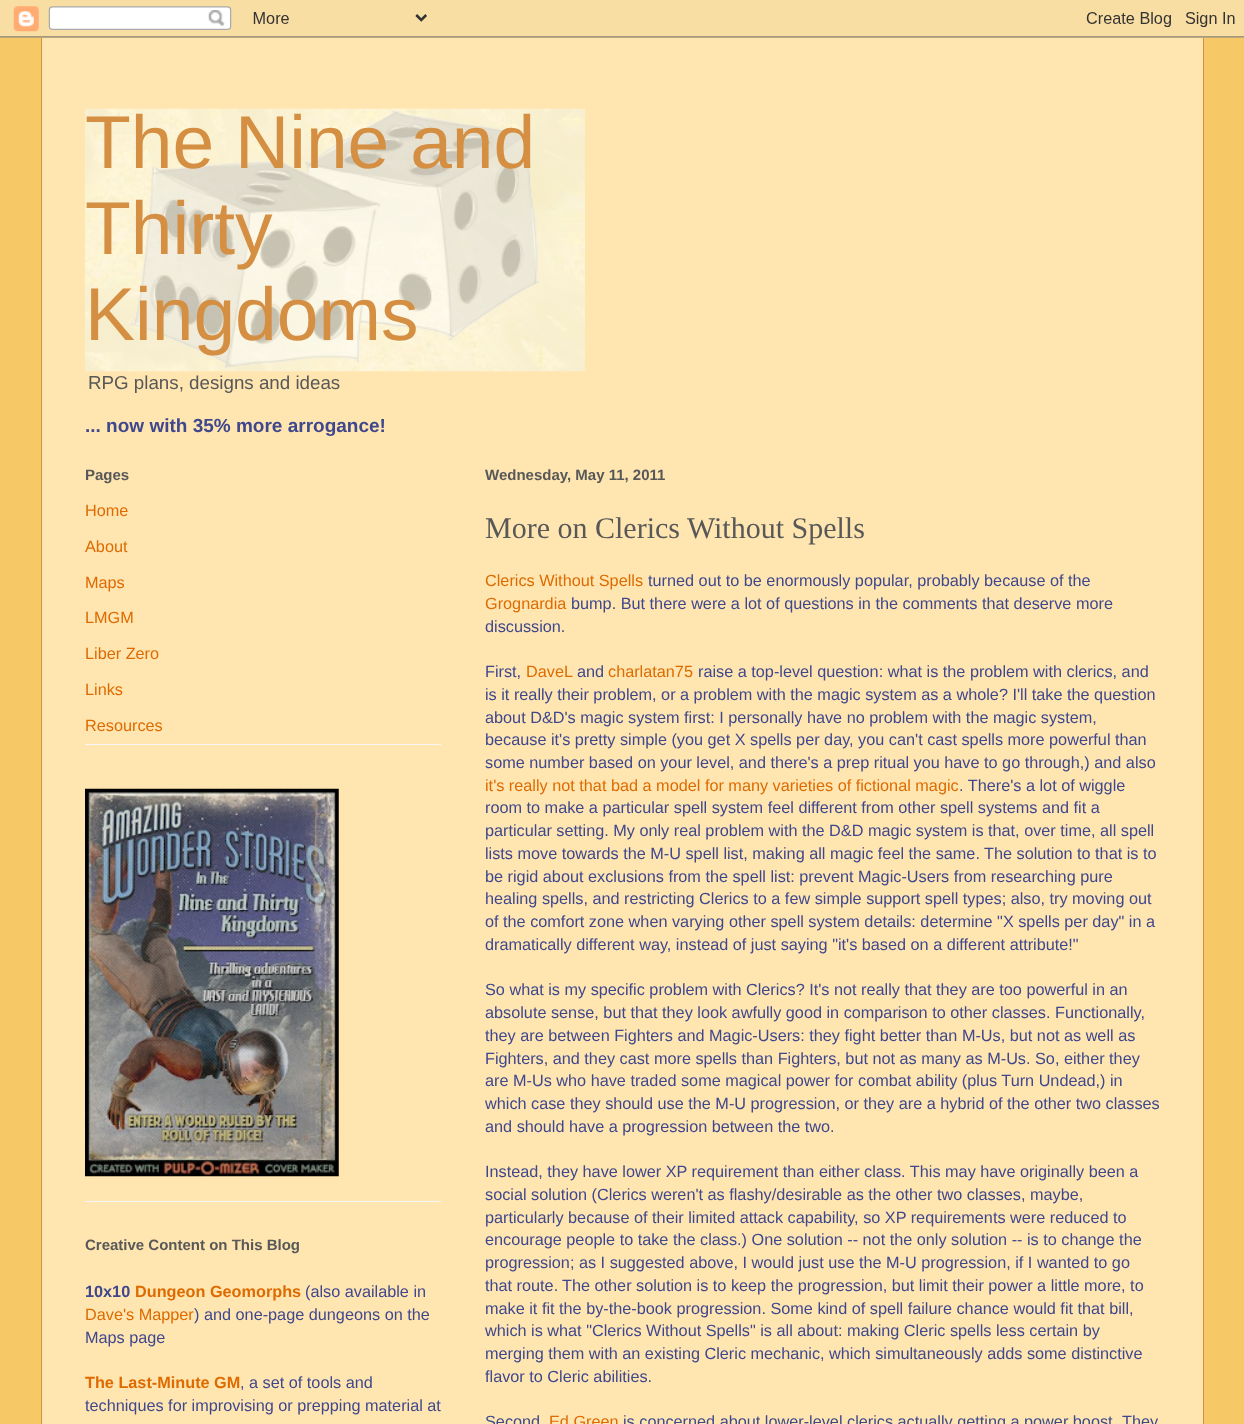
<svg xmlns="http://www.w3.org/2000/svg" width="1244" height="1424" viewBox="0 0 1244 1424">
  <rect width="100%" height="100%" fill="#f6c866"/>
  <image x="0" y="0" width="1244" height="38" href="img/1.png"/>
  <path d="M42 38h1161v1386H42z" fill="#ffe6b1"/>
  <path d="M1203 38h1v1386H1203z" fill="#d58f42"/>
  <path d="M41 38h1v1386H41z" fill="#d58f42"/>
  <image x="85" y="108" width="500" height="264" href="img/2.png"/>
  <path d="M85 744h356v1H85z" fill="#f6f6f6"/>
  <path d="M85 1201h356v1H85z" fill="#f6f6f6"/>
  <image x="85" y="788" width="254" height="389" href="img/3.png"/>
  <g font-family="Liberation Sans" font-size="75" fill="#d58f42">
    <text x="85" y="168">The Nine and</text>
    <text x="85" y="254">Thirty</text>
    <text x="85" y="340">Kingdoms</text>
  </g>
  <text x="88" y="389" font-family="Liberation Sans" font-size="18.75" fill="#585858">RPG plans, designs and ideas</text>
  <text x="85" y="432" font-family="Liberation Sans" font-size="19" font-weight="bold" fill="#3f478d">... now with 35% more arrogance!</text>
  <text x="85" y="480" font-family="Liberation Sans" font-size="15" font-weight="bold" fill="#585858">Pages</text>
  <g font-family="Liberation Sans" font-size="16.25" fill="#de6a00">
    <text x="85" y="516">Home</text>
    <text x="85" y="552">About</text>
    <text x="85" y="588">Maps</text>
    <text x="85" y="623">LMGM</text>
    <text x="85" y="659">Liber Zero</text>
    <text x="85" y="695">Links</text>
    <text x="85" y="731">Resources</text>
  </g>
  <text x="85" y="1250" font-family="Liberation Sans" font-size="15" font-weight="bold" fill="#585858">Creative Content on This Blog</text>
  <text x="85" y="1297" font-family="Liberation Sans" font-size="16.25" font-weight="bold" fill="#3f478d">10x10</text>
  <text x="135" y="1297" font-family="Liberation Sans" font-size="16.25" font-weight="bold" fill="#de6a00">Dungeon Geomorphs</text>
  <text x="305" y="1297" font-family="Liberation Sans" font-size="16.25" fill="#3f478d">(also available in</text>
  <text x="85" y="1320" font-family="Liberation Sans" font-size="16.25" fill="#de6a00">Dave's Mapper</text>
  <g font-family="Liberation Sans" font-size="16.25" fill="#3f478d">
    <text x="194" y="1320">) and one-page dungeons on the</text>
    <text x="85" y="1343">Maps page</text>
  </g>
  <text x="85" y="1388" font-family="Liberation Sans" font-size="16.25" font-weight="bold" fill="#de6a00">The Last-Minute GM</text>
  <g font-family="Liberation Sans" font-size="16.25" fill="#3f478d">
    <text x="240" y="1388">, a set of tools and</text>
    <text x="85" y="1411">techniques for improvising or prepping material at</text>
  </g>
  <text x="485" y="480" font-family="Liberation Sans" font-size="15" font-weight="bold" fill="#585858">Wednesday, May 11, 2011</text>
  <text x="485" y="538" font-family="Liberation Serif" font-size="30" fill="#585858">More on Clerics Without Spells</text>
  <text x="485" y="586" font-family="Liberation Sans" font-size="16.25" fill="#de6a00">Clerics Without Spells</text>
  <text x="648" y="586" font-family="Liberation Sans" font-size="16.25" fill="#3f478d">turned out to be enormously popular, probably because of the</text>
  <text x="485" y="609" font-family="Liberation Sans" font-size="16.25" fill="#de6a00">Grognardia</text>
  <g font-family="Liberation Sans" font-size="16.25" fill="#3f478d">
    <text x="571" y="609">bump. But there were a lot of questions in the comments that deserve more</text>
    <text x="485" y="632">discussion.</text>
    <text x="485" y="677">First,</text>
  </g>
  <text x="526" y="677" font-family="Liberation Sans" font-size="16.25" fill="#de6a00">DaveL</text>
  <text x="577" y="677" font-family="Liberation Sans" font-size="16.25" fill="#3f478d">and</text>
  <text x="608" y="677" font-family="Liberation Sans" font-size="16.25" fill="#de6a00">charlatan75</text>
  <g font-family="Liberation Sans" font-size="16.25" fill="#3f478d">
    <text x="698" y="677">raise a top-level question: what is the problem with clerics, and</text>
    <text x="485" y="700">is it really their problem, or a problem with the magic system as a whole? I'll take the question</text>
    <text x="485" y="723">about D&amp;D's magic system first: I personally have no problem with the magic system,</text>
    <text x="485" y="745">because it's pretty simple (you get X spells per day, you can't cast spells more powerful than</text>
    <text x="485" y="768">some number based on your level, and there's a prep ritual you have to go through,) and also</text>
  </g>
  <text x="485" y="791" font-family="Liberation Sans" font-size="16.25" fill="#de6a00">it's really not that bad a model for many varieties of fictional magic</text>
  <g font-family="Liberation Sans" font-size="16.25" fill="#3f478d">
    <text x="959" y="791">. There's a lot of wiggle</text>
    <text x="485" y="813">room to make a particular spell system feel different from other spell systems and fit a</text>
    <text x="485" y="836">particular setting. My only real problem with the D&amp;D magic system is that, over time, all spell</text>
    <text x="485" y="859">lists move towards the M-U spell list, making all magic feel the same.</text>
    <text x="984" y="859">The solution to that is to</text>
    <text x="485" y="882">be rigid about exclusions from the spell list: prevent Magic-Users from researching pure</text>
    <text x="485" y="904">healing spells, and restricting Clerics to a few simple support spell types; also, try moving out</text>
    <text x="485" y="927">of the comfort zone when varying other spell system details: determine "X spells per day" in a</text>
    <text x="485" y="950">dramatically different way, instead of just saying "it's based on a different attribute!"</text>
    <text x="485" y="995">So what is my specific problem with Clerics? It's not really that they are too powerful in an</text>
    <text x="485" y="1018">absolute sense, but that they look awfully good in comparison to other classes. Functionally,</text>
    <text x="485" y="1041">they are between Fighters and Magic-Users: they fight better than M-Us, but not as well as</text>
    <text x="485" y="1064">Fighters, and they cast more spells than Fighters, but not as many as M-Us. So, either they</text>
    <text x="485" y="1086">are M-Us who have traded some magical power for combat ability (plus Turn Undead,) in</text>
    <text x="485" y="1109">which case they should use the M-U progression, or they are a hybrid of the other two classes</text>
    <text x="485" y="1132">and should have a progression between the two.</text>
    <text x="485" y="1177">Instead, they have lower XP requirement than either class. This may have originally been a</text>
    <text x="485" y="1200">social solution (Clerics weren't as flashy/desirable as the other two classes, maybe,</text>
    <text x="485" y="1223">particularly because of their limited attack capability, so XP requirements were reduced to</text>
    <text x="485" y="1245">encourage people to take the class.) One solution -- not the only solution -- is to change the</text>
    <text x="485" y="1268">progression; as I suggested above, I would just use the M-U progression, if I wanted to go</text>
    <text x="485" y="1291">that route.</text>
    <text x="562" y="1291">The other solution is to keep the progression, but limit their power a little more, to</text>
    <text x="485" y="1314">make it fit the by-the-book progression. Some kind of spell failure chance would fit that bill,</text>
    <text x="485" y="1336">which is what "Clerics Without Spells" is all about: making Cleric spells less certain by</text>
    <text x="485" y="1359">merging them with an existing Cleric mechanic, which simultaneously adds some distinctive</text>
    <text x="485" y="1382">flavor to Cleric abilities.</text>
    <text x="485" y="1427">Second</text>
  </g>
  <text x="549" y="1427" font-family="Liberation Sans" font-size="16.25" fill="#de6a00">Ed Green</text>
  <g font-family="Liberation Sans" font-size="16.25" fill="#3f478d">
    <text x="623" y="1427">is concerned about lower-level clerics actually getting a power boost</text>
    <text x="1122" y="1427">They</text>
  </g>
</svg>
